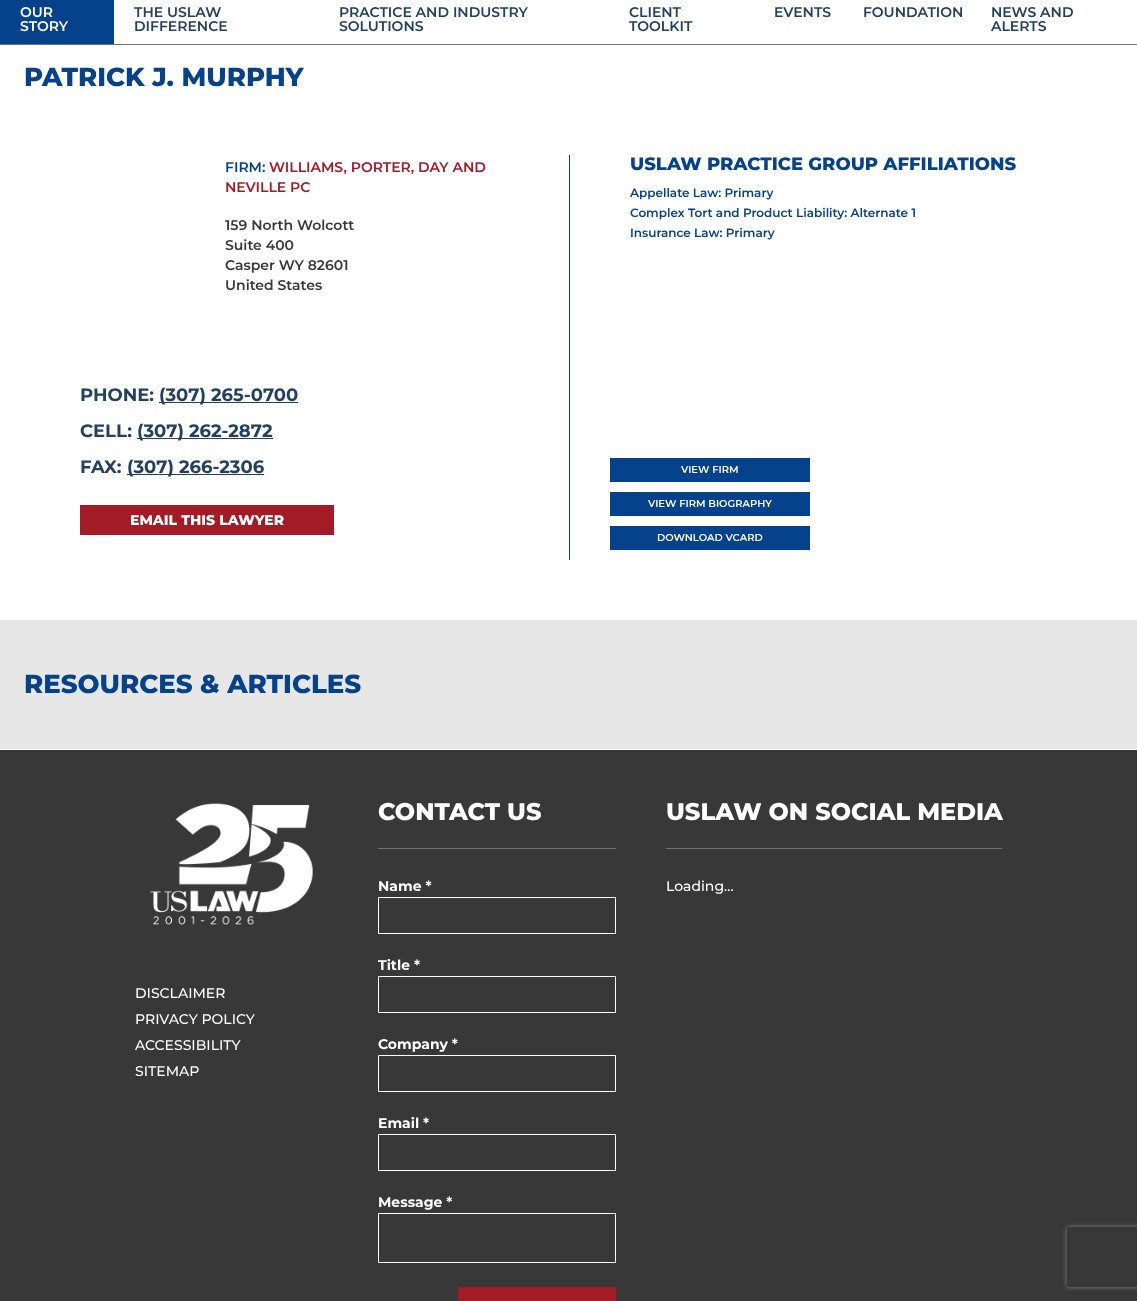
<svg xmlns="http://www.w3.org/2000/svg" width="1137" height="1301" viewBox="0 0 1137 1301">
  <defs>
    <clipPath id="clip1"><path d="M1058 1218H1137V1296H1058ZM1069 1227H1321C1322 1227 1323 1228 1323 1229V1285C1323 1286 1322 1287 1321 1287H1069C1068 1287 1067 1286 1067 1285V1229C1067 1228 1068 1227 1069 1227Z" clip-rule="evenodd"/></clipPath>
  </defs>
  <rect width="100%" height="100%" fill="#fff"/>
  <path d="M0 44h1137v1H0z" fill="#707070"/>
  <path d="M0 0h114v44H0z" fill="#06428b"/>
  <path d="M159 402h139v1H159z" fill="#214063"/>
  <path d="M137 438h136v1H137z" fill="#214063"/>
  <path d="M127 474h137v1H127z" fill="#214063"/>
  <path d="M80 505h254v30H80z" fill="#a21b26"/>
  <path d="M569 155h1v405H569z" fill="#06428b"/>
  <path d="M610 458h200v24H610z" fill="#06428b"/>
  <path d="M610 492h200v24H610z" fill="#06428b"/>
  <path d="M610 526h200v24H610z" fill="#06428b"/>
  <path d="M0 620h1137v129H0z" fill="#e7e7e7"/>
  <path d="M0 750h1137v551H0z" fill="#383838"/>
  <path d="M378 848h238v1H378z" fill="#707070"/>
  <path d="M378.5 897.5h237v36H378.5z" fill="none" stroke="#fff"/>
  <path d="M378.5 976.5h237v36H378.5z" fill="none" stroke="#fff"/>
  <path d="M378.5 1055.5h237v36H378.5z" fill="none" stroke="#fff"/>
  <path d="M378.5 1134.5h237v36H378.5z" fill="none" stroke="#fff"/>
  <path d="M378.5 1213.5h237v49H378.5z" fill="none" stroke="#fff"/>
  <path d="M458 1287h158v14H458z" fill="#a21b26"/>
  <path d="M666 848h336v1H666z" fill="#707070"/>
  <image x="150" y="803" width="163" height="122" href="img/1.png"/>
  <g clip-path="url(#clip1)">
    <rect x="1067" y="1227" width="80" height="60" rx="2" fill="#808080" filter="blur(2.5px)"/>
  </g>
  <g font-family="Montserrat" font-size="14" font-weight="600" fill="#fff">
    <text x="20" y="17">OUR</text>
    <text x="20" y="31">STORY</text>
  </g>
  <g font-family="Montserrat" font-size="14" font-weight="600" fill="#214063">
    <text x="134" y="17">THE USLAW</text>
    <text x="134" y="31">DIFFERENCE</text>
    <text x="339" y="17">PRACTICE AND INDUSTRY</text>
    <text x="339" y="31">SOLUTIONS</text>
    <text x="629" y="17">CLIENT</text>
    <text x="629" y="31">TOOLKIT</text>
    <text x="774" y="17">EVENTS</text>
    <text x="863" y="17">FOUNDATION</text>
    <text x="991" y="17">NEWS AND</text>
    <text x="991" y="31">ALERTS</text>
  </g>
  <text x="24" y="86" font-family="Montserrat" font-size="26" font-weight="800" fill="#06428b">PATRICK J. MURPHY</text>
  <text x="225" y="172" font-family="Montserrat" font-size="14" font-weight="600" fill="#06428b">FIRM:</text>
  <g font-family="Montserrat" font-size="14" font-weight="600" fill="#a21b26">
    <text x="269" y="172">WILLIAMS, PORTER, DAY AND</text>
    <text x="225" y="192">NEVILLE PC</text>
  </g>
  <g font-family="Montserrat" font-size="14" font-weight="600" fill="#383838">
    <text x="225" y="230">159 North Wolcott</text>
    <text x="225" y="250">Suite 400</text>
    <text x="225" y="270">Casper WY 82601</text>
    <text x="225" y="290">United States</text>
  </g>
  <g font-family="Montserrat" font-size="18" font-weight="bold" fill="#214063">
    <text x="80" y="401">PHONE:</text>
    <text x="159" y="401">(307) 265-0700</text>
    <text x="80" y="437">CELL:</text>
    <text x="137" y="437">(307) 262-2872</text>
    <text x="80" y="473">FAX:</text>
    <text x="127" y="473">(307) 266-2306</text>
  </g>
  <text x="130" y="525" font-family="Montserrat" font-size="14" font-weight="800" fill="#fff">EMAIL THIS LAWYER</text>
  <text x="630" y="170" font-family="Montserrat" font-size="18" font-weight="800" fill="#06428b">USLAW PRACTICE GROUP AFFILIATIONS</text>
  <g font-family="Montserrat" font-size="12" font-weight="600" fill="#06428b">
    <text x="630" y="197">Appellate Law: Primary</text>
    <text x="630" y="217">Complex Tort and Product Liability: Alternate 1</text>
    <text x="630" y="237">Insurance Law: Primary</text>
  </g>
  <g font-family="Montserrat" font-size="10" font-weight="600" fill="#fff">
    <text x="681" y="473">VIEW FIRM</text>
    <text x="648" y="507">VIEW FIRM BIOGRAPHY</text>
    <text x="657" y="541">DOWNLOAD VCARD</text>
  </g>
  <text x="24" y="693" font-family="Montserrat" font-size="26" font-weight="800" fill="#06428b">RESOURCES &amp; ARTICLES</text>
  <text x="378" y="820" font-family="Montserrat" font-size="24" font-weight="800" fill="#fff">CONTACT US</text>
  <g font-family="Montserrat" font-size="14" font-weight="bold" fill="#fff">
    <text x="378" y="891">Name *</text>
    <text x="378" y="970">Title *</text>
    <text x="378" y="1049">Company *</text>
    <text x="378" y="1128">Email *</text>
    <text x="378" y="1207">Message *</text>
  </g>
  <text x="666" y="820" font-family="Montserrat" font-size="24" font-weight="800" fill="#fff">USLAW ON SOCIAL MEDIA</text>
  <g font-family="Montserrat" font-size="14" font-weight="500" fill="#fff">
    <text x="666" y="891">Loading...</text>
    <text x="135" y="998">DISCLAIMER</text>
    <text x="135" y="1024">PRIVACY POLICY</text>
    <text x="135" y="1050">ACCESSIBILITY</text>
    <text x="135" y="1076">SITEMAP</text>
  </g>
</svg>
